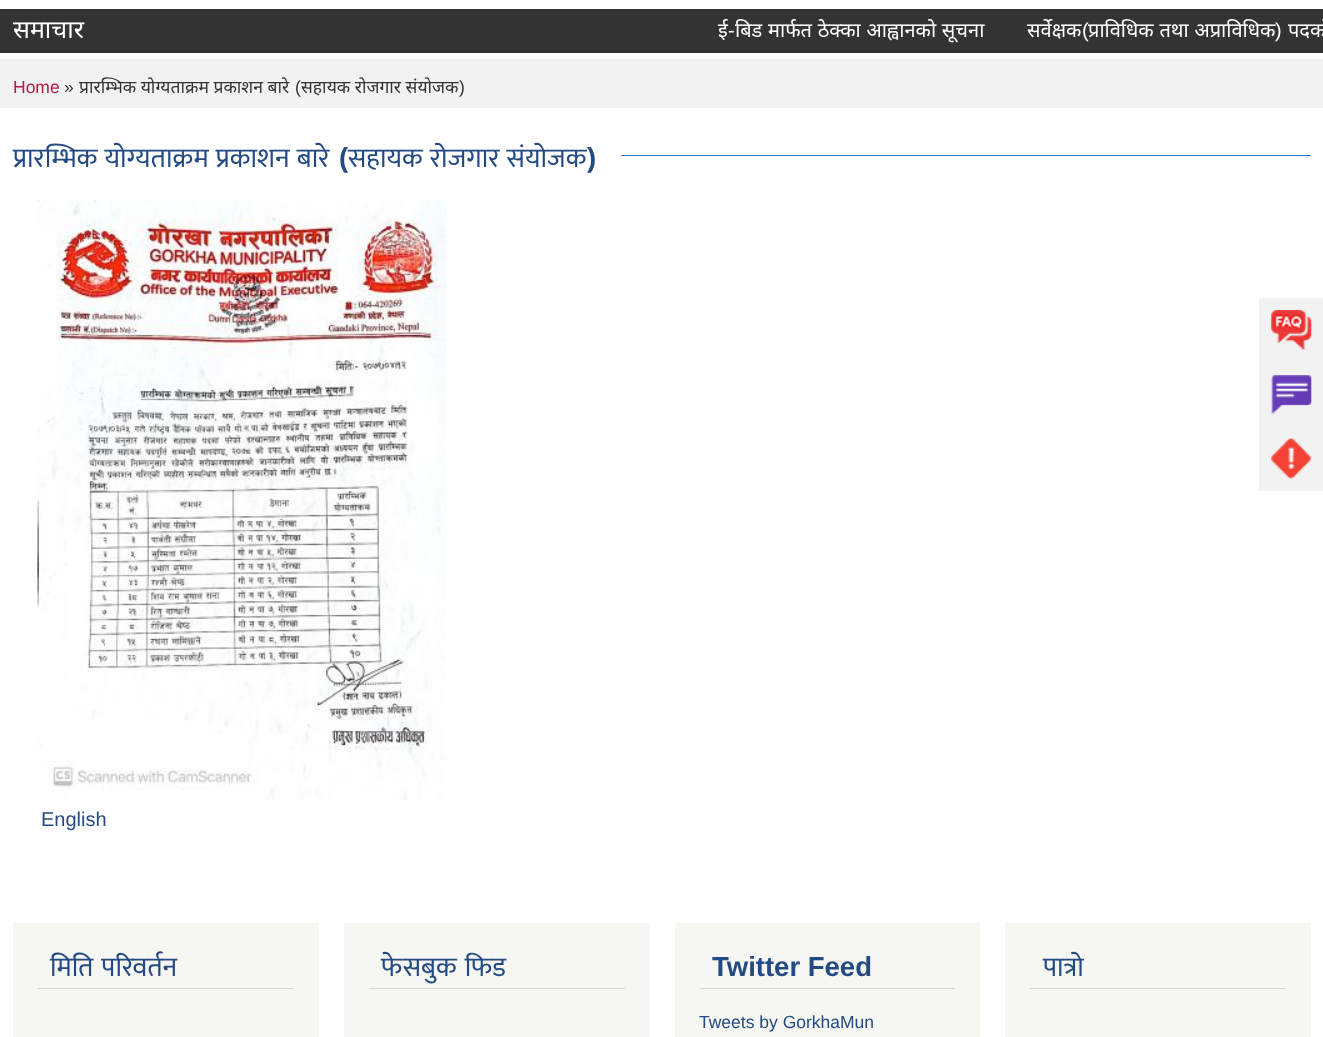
<svg xmlns="http://www.w3.org/2000/svg" width="1323" height="1037" viewBox="0 0 1323 1037">
  <rect width="100%" height="100%" fill="#fff"/>
  <path d="M0 9h1323v44H0z" fill="#333"/>
  <path d="M0 59h1323v49H0z" fill="#f2f2f2"/>
  <path d="M621 155h690v1H621z" fill="#376fc2"/>
  <image x="37" y="200" width="409" height="600" href="img/1.png"/>
  <path d="M13 923h306v114H13z" fill="#f6f6f2"/>
  <path d="M38 988h256v1H38z" fill="#d6d6d6"/>
  <path d="M344 923h306v114H344z" fill="#f6f6f2"/>
  <path d="M369 988h256v1H369z" fill="#d6d6d6"/>
  <path d="M675 923h305v114H675z" fill="#f6f6f2"/>
  <path d="M700 988h255v1H700z" fill="#d6d6d6"/>
  <path d="M1005 923h306v114H1005z" fill="#f6f6f2"/>
  <path d="M1030 988h256v1H1030z" fill="#d6d6d6"/>
  <path d="M1259 298h64v193H1259z" fill="#f2f2f2"/>
  <image x="1271" y="310" width="41" height="40" href="img/2.png"/>
  <image x="1271" y="375" width="41" height="39" href="img/3.png"/>
  <image x="1271" y="438" width="41" height="41" href="img/4.png"/>
  <text x="13" y="38" font-family="Noto Sans" font-size="25" fill="#fff">समाचार</text>
  <text x="718" y="37" font-family="Noto Sans" font-size="20" fill="#fff">ई</text>
  <text x="728" y="37" font-family="Liberation Sans" font-size="20" fill="#fff">-</text>
  <g font-family="Noto Sans" font-size="20" fill="#fff">
    <text x="735" y="37" word-spacing="0.5">बिड मार्फत ठेक्का आह्वानको सूचना</text>
    <text x="1027" y="37">सर्वेक्षक</text>
  </g>
  <text x="1082" y="37" font-family="Liberation Sans" font-size="20" fill="#fff">(</text>
  <text x="1088" y="37" word-spacing="0.5" font-family="Noto Sans" font-size="20" fill="#fff">प्राविधिक तथा अप्राविधिक</text>
  <text x="1275" y="37" font-family="Liberation Sans" font-size="20" fill="#fff">)</text>
  <text x="1288" y="37" word-spacing="0.5" font-family="Noto Sans" font-size="20" fill="#fff">पदको</text>
  <text x="13" y="93" font-family="Liberation Sans" font-size="17.5" fill="#b21c42">Home</text>
  <text x="64" y="93" font-family="Liberation Sans" font-size="17.5" fill="#333">»</text>
  <text x="79" y="93" font-family="Noto Sans" font-size="17.5" fill="#333">प्रारम्भिक योग्यताक्रम प्रकाशन बारे</text>
  <text x="295" y="93" font-family="Liberation Sans" font-size="17.5" fill="#333">(</text>
  <text x="301" y="93" font-family="Noto Sans" font-size="17.5" fill="#333">सहायक रोजगार संयोजक</text>
  <text x="459" y="93" font-family="Liberation Sans" font-size="17.5" fill="#333">)</text>
  <text x="13" y="167" word-spacing="1" font-family="Mukta" font-size="27.5" fill="#234a83">प्रारम्भिक योग्यताक्रम प्रकाशन बारे</text>
  <text x="339" y="167" font-family="Liberation Sans" font-size="27.5" font-weight="bold" fill="#234a83">(</text>
  <text x="348" y="167" word-spacing="1" font-family="Mukta" font-size="27.5" fill="#234a83">सहायक रोजगार संयोजक</text>
  <text x="587" y="167" font-family="Liberation Sans" font-size="27.5" font-weight="bold" fill="#234a83">)</text>
  <text x="41" y="826" font-family="Liberation Sans" font-size="20" fill="#234a83">English</text>
  <g font-family="Mukta" font-size="27.5" fill="#234a83">
    <text x="50" y="976" word-spacing="2">मिति परिवर्तन</text>
    <text x="381" y="976" word-spacing="2">फेसबुक फिड</text>
  </g>
  <text x="712" y="976" font-family="Liberation Sans" font-size="27.5" font-weight="bold" fill="#234a83">Twitter Feed</text>
  <text x="699" y="1028" font-family="Liberation Sans" font-size="17.5" fill="#234a83">Tweets by GorkhaMun</text>
  <text x="1043" y="976" font-family="Mukta" font-size="27.5" fill="#234a83">पात्रो</text>
</svg>
